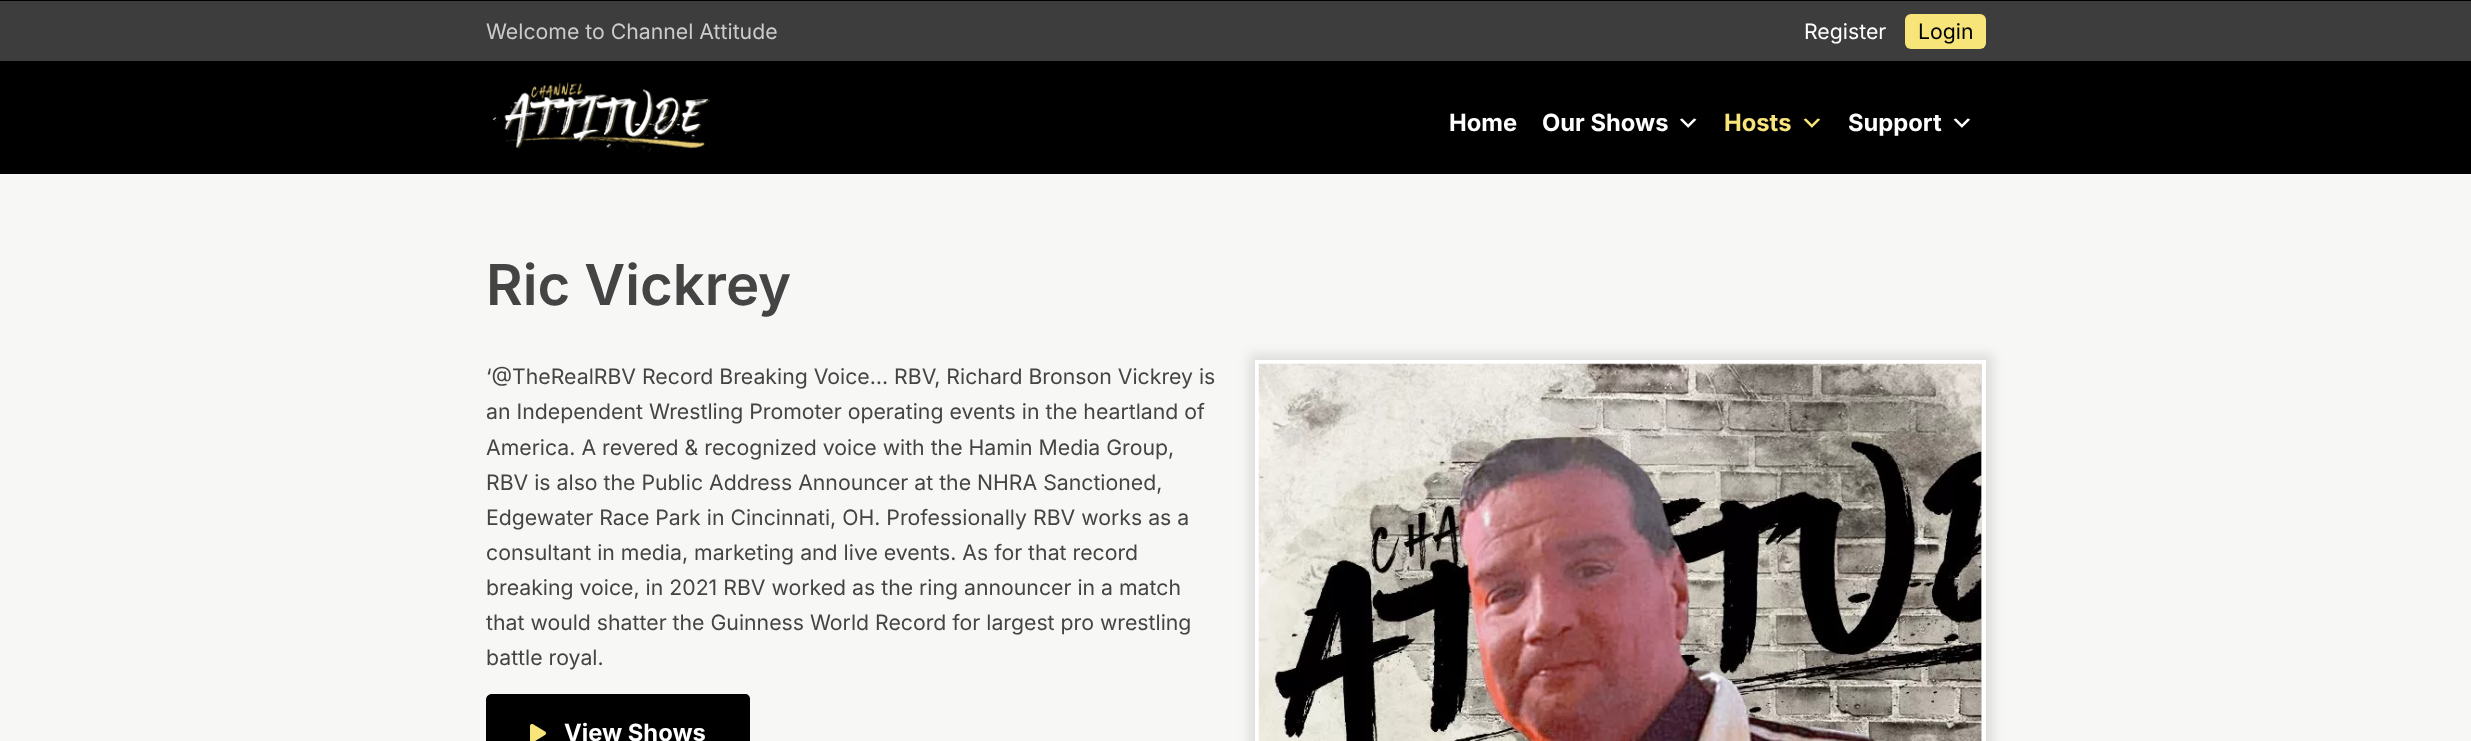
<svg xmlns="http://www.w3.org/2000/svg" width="2471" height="741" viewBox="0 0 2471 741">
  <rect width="100%" height="100%" fill="#000"/>
  <path d="M0 1h2471v60H0z" fill="#3d3d3d"/>
  <rect x="1905" y="14" width="81" height="35" rx="6" fill="#f7e579"/>
  <image x="489" y="82" width="221" height="71" href="img/1.png"/>
  <image x="1679" y="118" width="18" height="10" href="img/2.png"/>
  <image x="1803" y="118" width="18" height="10" href="img/3.png"/>
  <image x="1953" y="118" width="18" height="10" href="img/4.png"/>
  <path d="M0 174h2471v567H0z" fill="#f7f8f5"/>
  <path d="M492 694H745C748 694 750 696 750 699V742C750 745 748 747 745 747H491C488 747 486 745 486 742V700C486 696.5 488.5 694 492 694Z" fill="#000"/>
  <image x="530" y="723" width="16" height="18" href="img/5.png"/>
  <path d="M1249 354h744v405H1249z" fill="#0000001a" filter="blur(6px)"/>
  <path d="M1257 362h727v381H1257z" fill="none" stroke="#fff" stroke-width="4"/>
  <image x="1258" y="363" width="724" height="378" href="img/6.png"/>
  <text x="486" y="39" font-family="Inter" font-size="21.25" fill="#ccc">Welcome to Channel Attitude</text>
  <text x="1804" y="39" font-family="Inter" font-size="21.25" fill="#fff">Register</text>
  <text x="1918" y="39" font-family="Inter" font-size="21.25" fill="#000">Login</text>
  <g font-family="Inter" font-size="23.75" font-weight="bold" fill="#fff">
    <text x="1449" y="131">Home</text>
    <text x="1542" y="131">Our Shows</text>
  </g>
  <text x="1724" y="131" font-family="Inter" font-size="23.75" font-weight="bold" fill="#f7e579">Hosts</text>
  <text x="1848" y="131" font-family="Inter" font-size="23.75" font-weight="bold" fill="#fff">Support</text>
  <text x="486" y="305" font-family="Inter" font-size="56.25" font-weight="600" fill="#444">Ric Vickrey</text>
  <g font-family="Inter" font-size="21.25" fill="#444">
    <text x="486" y="384">‘@TheRealRBV Record Breaking Voice… RBV, Richard Bronson Vickrey is</text>
    <text x="486" y="419">an Independent Wrestling Promoter operating events in the heartland of</text>
    <text x="486" y="455">America. A revered &amp; recognized voice with the Hamin Media Group,</text>
    <text x="486" y="490">RBV is also the Public Address Announcer at the NHRA Sanctioned,</text>
    <text x="486" y="525">Edgewater Race Park in Cincinnati, OH. Professionally RBV works as a</text>
    <text x="486" y="560">consultant in media, marketing and live events. As for that record</text>
    <text x="486" y="595">breaking voice, in 2021 RBV worked as the ring announcer in a match</text>
    <text x="486" y="630">that would shatter the Guinness World Record for largest pro wrestling</text>
    <text x="486" y="665">battle royal.</text>
  </g>
  <text x="564" y="741" font-family="Inter" font-size="23.75" font-weight="bold" fill="#fff">View Shows</text>
</svg>
